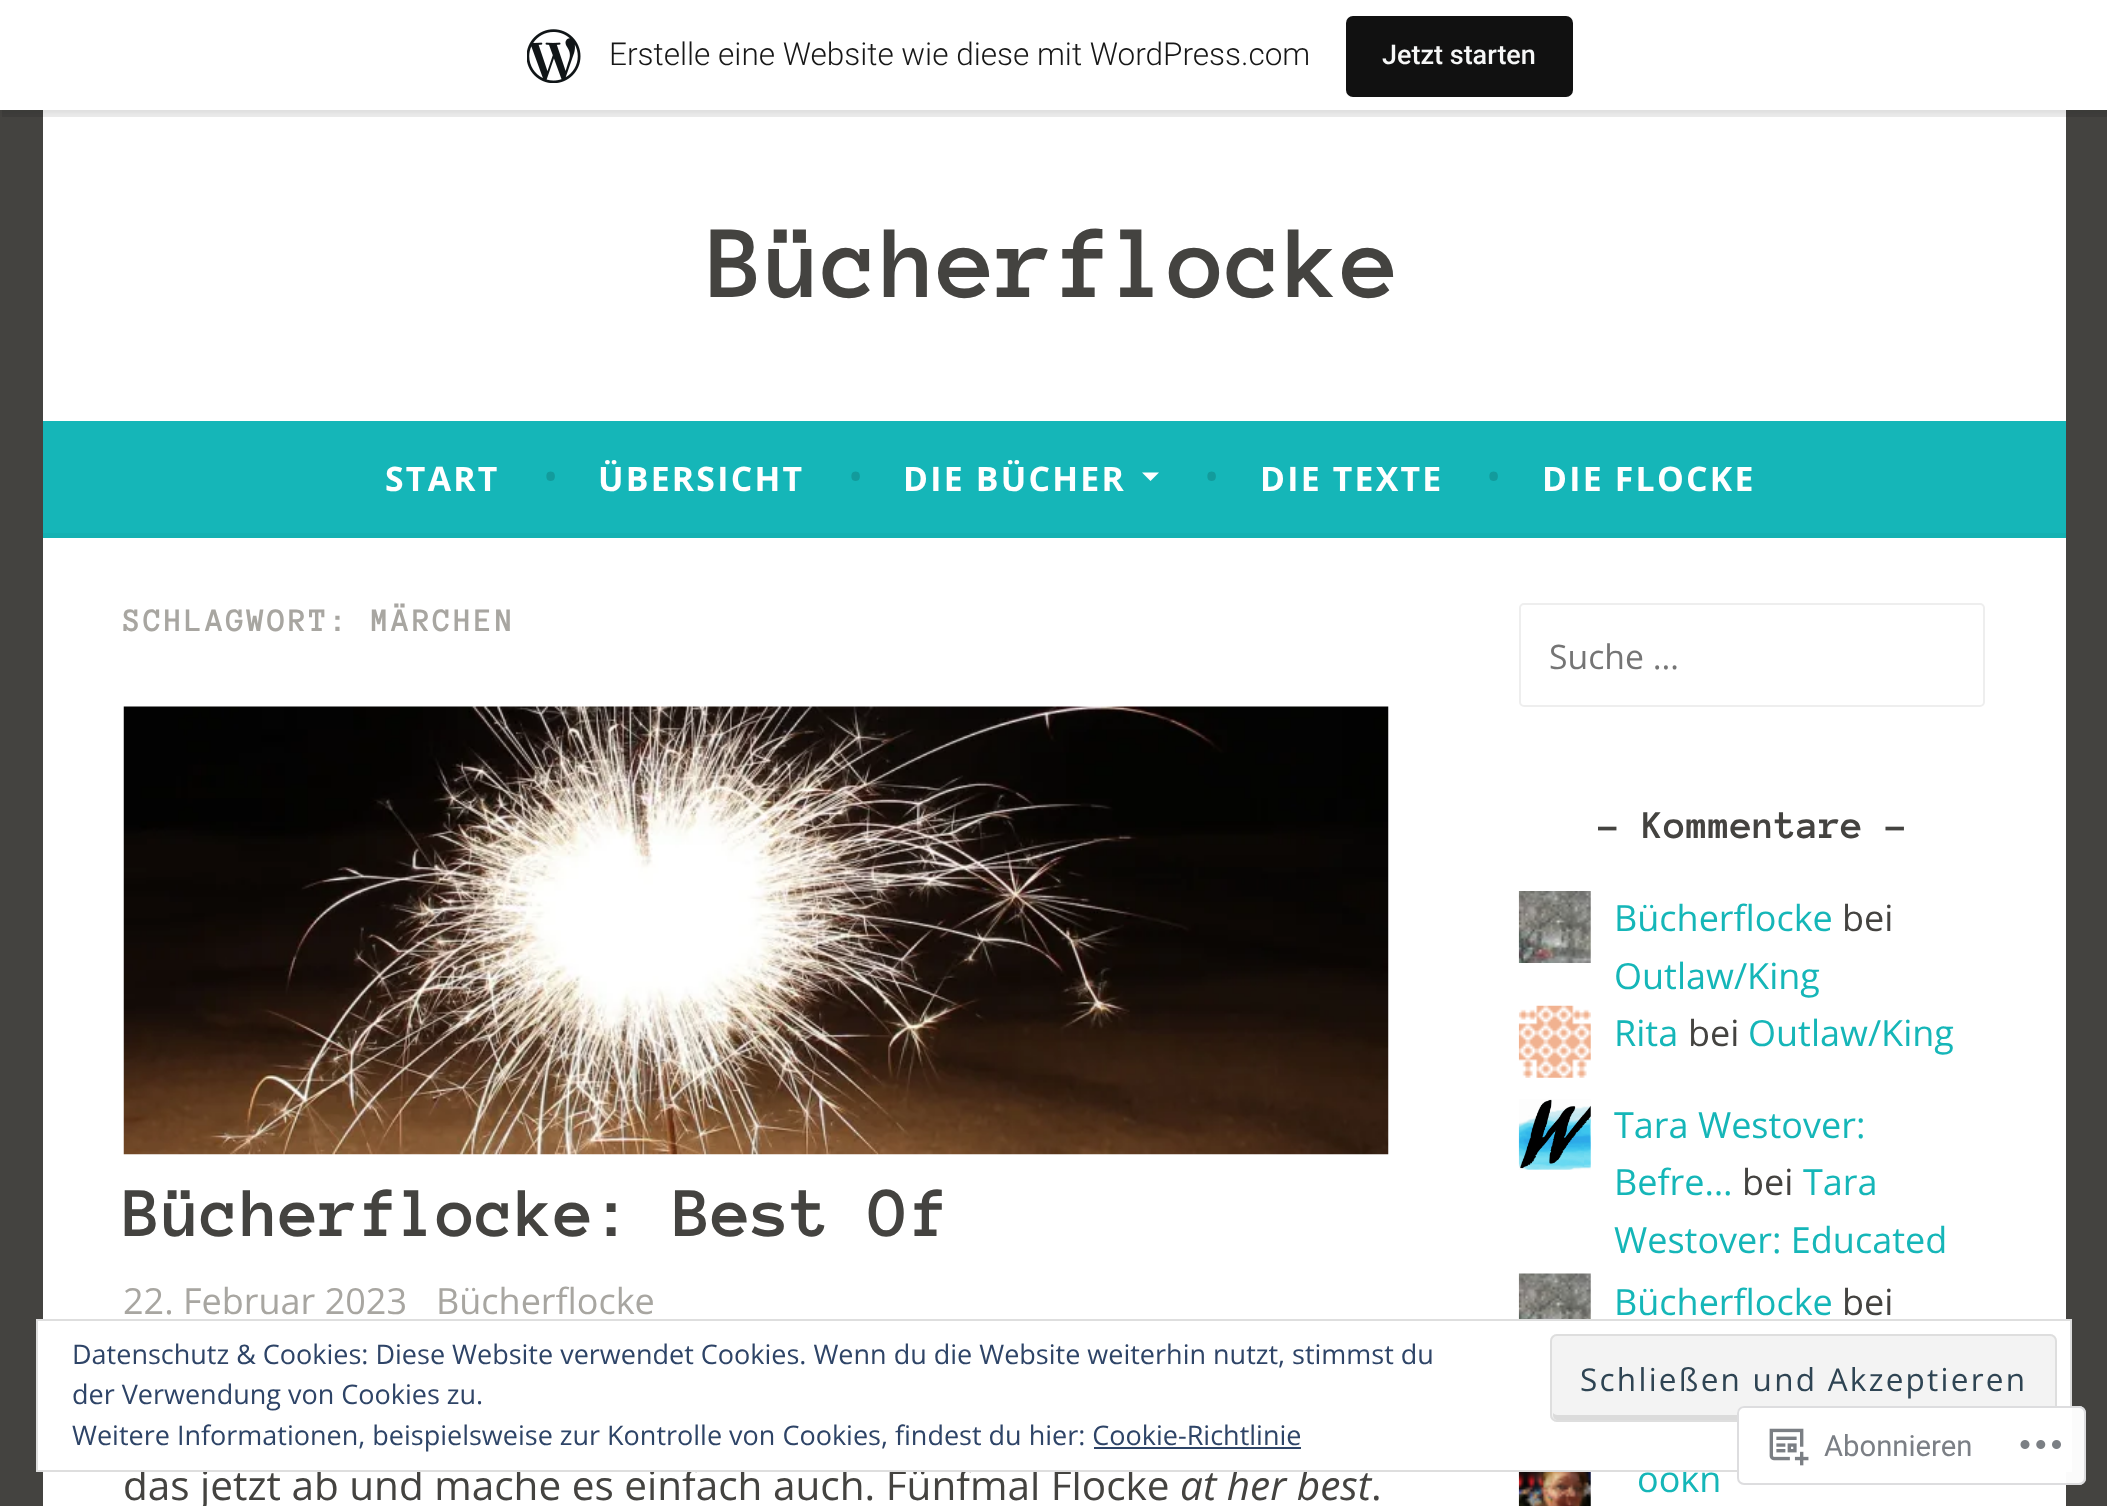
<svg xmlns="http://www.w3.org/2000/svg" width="2107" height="1506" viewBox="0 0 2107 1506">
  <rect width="100%" height="100%" fill="#444340"/>
  <path d="M43 110h2023v311H43z" fill="#fff"/>
  <path d="M0 2h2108v111H0z" fill="#0000000d" filter="blur(2px)"/>
  <path d="M2 110V117H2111V7H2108V110Z" fill="#00000014"/>
  <path d="M0 0h2107v110H0z" fill="#fff"/>
  <image x="527" y="29" width="54" height="54" href="img/1.png"/>
  <rect x="1346" y="16" width="227" height="81" rx="7" fill="#111"/>
  <path d="M43 421h2023v112H43z" fill="#15b6b8"/>
  <path d="M43 533h2023v5H43z" fill="#14b1b2"/>
  <path d="M1142 472.5H1159L1150.5 481Z" fill="#fff"/>
  <path d="M43 538h2023v968H43z" fill="#fff"/>
  <image x="123" y="706" width="1266" height="449" href="img/2.png"/>
  <rect x="1520" y="604" width="464" height="102" rx="4" fill="none" stroke="#eee" stroke-width="2"/>
  <image x="1518" y="891" width="73" height="72" href="img/3.png"/>
  <image x="1518" y="1005" width="73" height="73" href="img/4.png"/>
  <image x="1518" y="1099" width="73" height="71" href="img/5.png"/>
  <image x="1518" y="1273" width="73" height="46" href="img/6.png"/>
  <image x="1518" y="1472" width="73" height="34" href="img/7.png"/>
  <text x="609" y="65" font-family="Roboto" font-size="31.5" font-weight="300" fill="#171717">Erstelle eine Website wie diese mit WordPress.com</text>
  <text x="1382" y="64" font-family="Roboto" font-size="27" font-weight="500" fill="#f6f7f7">Jetzt starten</text>
  <text x="708" y="297" font-family="Anonymous Pro" font-size="105.75" font-weight="bold" fill="#444340">Bücherflocke</text>
  <text x="385" y="491" font-family="Open Sans" font-size="33.75" font-weight="bold" letter-spacing="2.25" fill="#fff">START</text>
  <text x="543" y="491" font-family="Open Sans" font-size="40.5" fill="#129b9c">•</text>
  <text x="598" y="491" font-family="Open Sans" font-size="33.75" font-weight="bold" letter-spacing="2.25" fill="#fff">ÜBERSICHT</text>
  <text x="848" y="491" font-family="Open Sans" font-size="40.5" fill="#129b9c">•</text>
  <text x="903" y="491" font-family="Open Sans" font-size="33.75" font-weight="bold" letter-spacing="2.25" fill="#fff">DIE BÜCHER</text>
  <text x="1204" y="491" font-family="Open Sans" font-size="40.5" fill="#129b9c">•</text>
  <text x="1260" y="491" font-family="Open Sans" font-size="33.75" font-weight="bold" letter-spacing="2.25" fill="#fff">DIE TEXTE</text>
  <text x="1486" y="491" font-family="Open Sans" font-size="40.5" fill="#129b9c">•</text>
  <text x="1542" y="491" font-family="Open Sans" font-size="33.75" font-weight="bold" letter-spacing="2.25" fill="#fff">DIE FLOCKE</text>
  <text x="123" y="631" font-family="Anonymous Pro" font-size="33.75" font-weight="bold" letter-spacing="2.25" fill="#a8a6a1">SCHLAGWORT: MÄRCHEN</text>
  <text x="123" y="1236" font-family="Anonymous Pro" font-size="72" font-weight="bold" fill="#444340">Bücherflocke: Best Of</text>
  <g font-family="Open Sans" font-size="36" fill="#a8a6a1">
    <text x="123" y="1314">22. Februar 2023</text>
    <text x="436" y="1314">Bücherflocke</text>
  </g>
  <text x="123" y="1500" font-family="Open Sans" font-size="40.5" fill="#444340">das jetzt ab und mache es einfach auch. Fünfmal Flocke</text>
  <text x="1180" y="1500" font-family="Open Sans" font-size="40.5" font-style="italic" fill="#444340">at her best</text>
  <text x="1371" y="1500" font-family="Open Sans" font-size="40.5" fill="#444340">.</text>
  <text x="1549" y="669" font-family="Open Sans" font-size="33.75" fill="#757575">Suche …</text>
  <text x="1598" y="838" font-family="Anonymous Pro" font-size="40.5" font-weight="bold" fill="#444340">- Kommentare -</text>
  <text x="1614" y="931" font-family="Open Sans" font-size="36" fill="#15b6b8">Bücherflocke</text>
  <text x="1842" y="931" font-family="Open Sans" font-size="36" fill="#444340">bei</text>
  <g font-family="Open Sans" font-size="36" fill="#15b6b8">
    <text x="1614" y="989">Outlaw/King</text>
    <text x="1614" y="1046">Rita</text>
  </g>
  <text x="1688" y="1046" font-family="Open Sans" font-size="36" fill="#444340">bei</text>
  <g font-family="Open Sans" font-size="36" fill="#15b6b8">
    <text x="1748" y="1046">Outlaw/King</text>
    <text x="1614" y="1138">Tara Westover:</text>
    <text x="1614" y="1195">Befre…</text>
  </g>
  <text x="1742" y="1195" font-family="Open Sans" font-size="36" fill="#444340">bei</text>
  <g font-family="Open Sans" font-size="36" fill="#15b6b8">
    <text x="1803" y="1195">Tara</text>
    <text x="1614" y="1253">Westover: Educated</text>
    <text x="1614" y="1315">Bücherflocke</text>
  </g>
  <text x="1842" y="1315" font-family="Open Sans" font-size="36" fill="#444340">bei</text>
  <text x="1637" y="1492" font-family="Open Sans" font-size="36" fill="#15b6b8">ookn</text>
  <path d="M37 1320h2034v151H37z" fill="#fff" stroke="#dedede" stroke-width="2"/>
  <g font-family="Open Sans" font-size="27" fill="#2e4467">
    <text x="72" y="1364">Datenschutz &amp; Cookies: Diese Website verwendet Cookies. Wenn du die Website weiterhin nutzt, stimmst du</text>
    <text x="72" y="1404">der Verwendung von Cookies zu.</text>
  </g>
  <rect x="1550" y="1334" width="507" height="88" rx="7" fill="#f3f3f3"/>
  <path d="M1553 1413V1415C1553 1418 1555 1420 1558 1420H2049C2052 1420 2054 1418 2054 1415V1411C2054 1413 2052 1415 2050 1415H1557C1556 1415 1554 1414 1553 1413Z" fill="#dbdbdb"/>
  <rect x="1551" y="1335" width="505" height="86" rx="6" fill="none" stroke="#dedede" stroke-width="2"/>
  <text x="1580" y="1391" font-family="Open Sans" font-size="31.5" letter-spacing="2.25" fill="#2e4453">Schließen und Akzeptieren</text>
  <text x="72" y="1445" font-family="Open Sans" font-size="27" fill="#2e4467">Weitere Informationen, beispielsweise zur Kontrolle von Cookies, findest du hier: Cookie-Richtlinie</text>
  <path d="M1094 1447h207v2H1094z" fill="#2e4467"/>
  <rect x="1737" y="1406" width="349" height="79" rx="7" fill="#fffffffa"/>
  <rect x="1738" y="1407" width="347" height="77" rx="6" fill="none" stroke="#dcdcdefa" stroke-width="2"/>
  <image x="1769" y="1428" width="40" height="38" href="img/8.png"/>
  <text x="1824" y="1456" font-family="Roboto" font-size="29.25" fill="#7b7f85">Abonnieren</text>
  <image x="2020" y="1440" width="41" height="9" href="img/9.png"/>
</svg>
